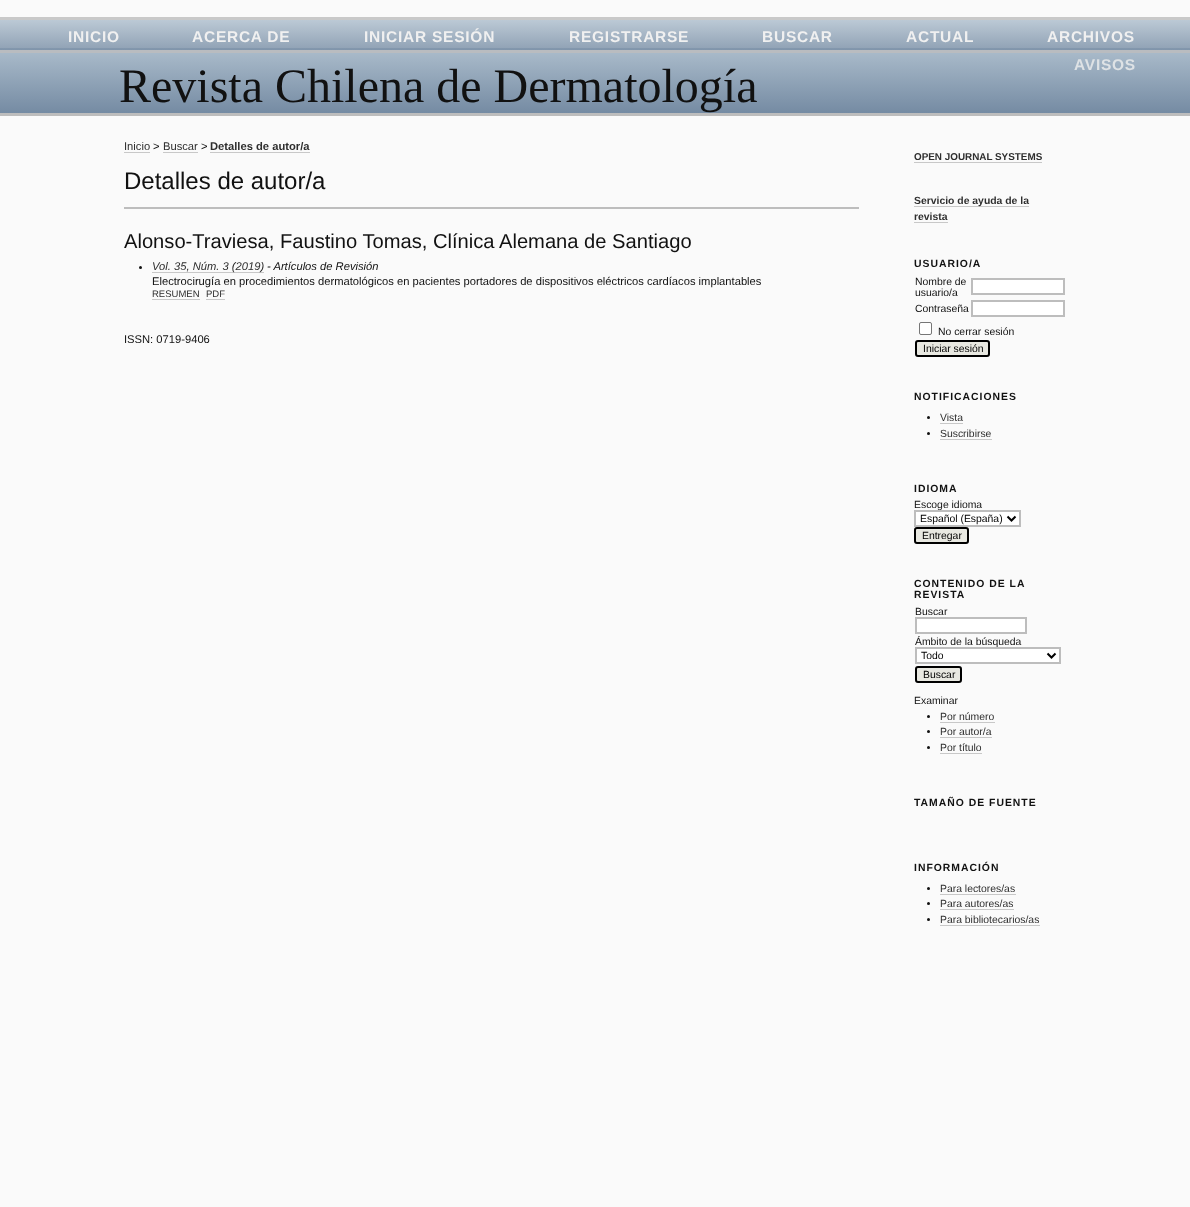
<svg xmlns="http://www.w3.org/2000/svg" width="1190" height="1207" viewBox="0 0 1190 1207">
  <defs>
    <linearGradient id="g1" gradientUnits="userSpaceOnUse" x1="595" y1="48" x2="595" y2="113"><stop offset="0" stop-color="#acbdcc"/><stop offset="1" stop-color="#758ba3"/></linearGradient>
    <linearGradient id="g2" gradientUnits="userSpaceOnUse" x1="595" y1="20" x2="595" y2="50"><stop offset="0" stop-color="#acbdcc" stop-opacity="0.8"/><stop offset="1" stop-color="#758ba3" stop-opacity="0.8"/></linearGradient>
  </defs>
  <rect width="100%" height="100%" fill="#fafafa"/>
  <path d="M0 48h1190v65H0z" fill="url(#g1)"/>
  <path d="M0 20h1190v30H0z" fill="url(#g2)"/>
  <path d="M0 17h1190v3H0z" fill="#c9c9c9"/>
  <path d="M0 50h1190v3H0z" fill="#b9bcc0"/>
  <path d="M124 152h26v1H124z" fill="#c8c8c8"/>
  <path d="M163 152h35v1H163z" fill="#c8c8c8"/>
  <path d="M210 152h100v1H210z" fill="#c8c8c8"/>
  <path d="M124 207h735v2H124z" fill="#bdbdbd"/>
  <circle cx="140.5" cy="267.5" r="1.5" fill="#111"/>
  <path d="M152 272h112v1H152z" fill="#c8c8c8"/>
  <path d="M152 299h48v1H152z" fill="#c8c8c8"/>
  <path d="M206 299h19v1H206z" fill="#c8c8c8"/>
  <path d="M914 162h128v1H914z" fill="#c8c8c8"/>
  <path d="M914 206h115v1H914z" fill="#c8c8c8"/>
  <path d="M914 222h34v1H914z" fill="#c8c8c8"/>
  <path d="M972 279h92v15H972z" fill="#fff" stroke="#bdbdbd" stroke-width="2"/>
  <path d="M972 301h92v15H972z" fill="#fff" stroke="#bdbdbd" stroke-width="2"/>
  <rect x="919.5" y="322.5" width="12" height="12" rx="1.5" fill="#fff" stroke="#767676"/>
  <rect x="916" y="341" width="73" height="15" rx="2" fill="#e8e8e1" stroke="#000" stroke-width="2"/>
  <circle cx="928.5" cy="417.5" r="1.5" fill="#111"/>
  <path d="M940 423h23v1H940z" fill="#c8c8c8"/>
  <circle cx="928.5" cy="433.5" r="1.5" fill="#111"/>
  <path d="M940 439h52v1H940z" fill="#c8c8c8"/>
  <rect x="915" y="528" width="53" height="15" rx="2" fill="#e8e8e1" stroke="#000" stroke-width="2"/>
  <path d="M916 618h110v15H916z" fill="#fff" stroke="#bdbdbd" stroke-width="2"/>
  <rect x="916" y="667" width="45" height="15" rx="2" fill="#e8e8e1" stroke="#000" stroke-width="2"/>
  <circle cx="928.5" cy="716.5" r="1.5" fill="#111"/>
  <path d="M940 722h55v1H940z" fill="#c8c8c8"/>
  <circle cx="928.5" cy="731.5" r="1.5" fill="#111"/>
  <path d="M940 737h52v1H940z" fill="#c8c8c8"/>
  <circle cx="928.5" cy="747.5" r="1.5" fill="#111"/>
  <path d="M940 753h42v1H940z" fill="#c8c8c8"/>
  <circle cx="928.5" cy="888.5" r="1.5" fill="#111"/>
  <path d="M940 894h76v1H940z" fill="#c8c8c8"/>
  <circle cx="928.5" cy="903.5" r="1.5" fill="#111"/>
  <path d="M940 909h74v1H940z" fill="#c8c8c8"/>
  <circle cx="928.5" cy="919.5" r="1.5" fill="#111"/>
  <path d="M940 925h100v1H940z" fill="#c8c8c8"/>
  <path d="M0 113h1190v3H0z" fill="#bdbdbd"/>
  <g font-family="Liberation Sans" font-size="15.5" font-weight="bold" letter-spacing="0.75" fill="#f0f0f0">
    <text x="68" y="42">INICIO</text>
    <text x="192" y="42">ACERCA DE</text>
    <text x="364" y="42">INICIAR SESIÓN</text>
    <text x="569" y="42">REGISTRARSE</text>
    <text x="762" y="42">BUSCAR</text>
    <text x="906" y="42">ACTUAL</text>
    <text x="1047" y="42">ARCHIVOS</text>
  </g>
  <text x="1074" y="70" font-family="Liberation Sans" font-size="15.5" font-weight="bold" letter-spacing="0.75" fill="#dee2e5">AVISOS</text>
  <text x="124" y="150" font-family="Liberation Sans" font-size="11.2" fill="#2e2e2e">Inicio</text>
  <text x="153" y="150" font-family="Liberation Sans" font-size="11.2" fill="#111">&gt;</text>
  <text x="163" y="150" font-family="Liberation Sans" font-size="11.2" fill="#2e2e2e">Buscar</text>
  <text x="201" y="150" font-family="Liberation Sans" font-size="11.2" fill="#111">&gt;</text>
  <text x="210" y="150" font-family="Liberation Sans" font-size="11.2" font-weight="bold" fill="#2e2e2e">Detalles de autor/a</text>
  <text x="124" y="189" font-family="Liberation Sans" font-size="24" fill="#111">Detalles de autor/a</text>
  <text x="124" y="248" font-family="Liberation Sans" font-size="20.15" fill="#111">Alonso-Traviesa, Faustino Tomas, Clínica Alemana de Santiago</text>
  <text x="152" y="270" font-family="Liberation Sans" font-size="11.2" font-style="italic" fill="#2e2e2e">Vol. 35, Núm. 3 (2019)</text>
  <text x="267" y="270" font-family="Liberation Sans" font-size="11.2" font-style="italic" fill="#111">- Artículos de Revisión</text>
  <text x="152" y="285" font-family="Liberation Sans" font-size="11.2" fill="#111">Electrocirugía en procedimientos dermatológicos en pacientes portadores de dispositivos eléctricos cardíacos implantables</text>
  <g font-family="Liberation Sans" font-size="9.5" fill="#2e2e2e">
    <text x="152" y="297">RESUMEN</text>
    <text x="206" y="297">PDF</text>
  </g>
  <text x="124" y="343" font-family="Liberation Sans" font-size="11.2" fill="#111">ISSN: 0719-9406</text>
  <text x="914" y="160" font-family="Liberation Sans" font-size="9.9" font-weight="bold" fill="#2e2e2e">OPEN JOURNAL SYSTEMS</text>
  <g font-family="Liberation Sans" font-size="10.4" font-weight="bold" fill="#2e2e2e">
    <text x="914" y="204">Servicio de ayuda de la</text>
    <text x="914" y="220">revista</text>
  </g>
  <text x="914" y="267" font-family="Liberation Sans" font-size="10.4" font-weight="bold" letter-spacing="1" fill="#111">USUARIO/A</text>
  <g font-family="Liberation Sans" font-size="10.4" fill="#111">
    <text x="915" y="285">Nombre de</text>
    <text x="915" y="296">usuario/a</text>
    <text x="915" y="312">Contraseña</text>
    <text x="938" y="335">No cerrar sesión</text>
  </g>
  <text x="923" y="352" font-family="Liberation Sans" font-size="10.4" fill="#000">Iniciar sesión</text>
  <text x="914" y="400" font-family="Liberation Sans" font-size="10.4" font-weight="bold" letter-spacing="1" fill="#111">NOTIFICACIONES</text>
  <g font-family="Liberation Sans" font-size="10.4" fill="#2e2e2e">
    <text x="940" y="421">Vista</text>
    <text x="940" y="437">Suscribirse</text>
  </g>
  <text x="914" y="492" font-family="Liberation Sans" font-size="10.4" font-weight="bold" letter-spacing="1" fill="#111">IDIOMA</text>
  <text x="914" y="508" font-family="Liberation Sans" font-size="10.4" fill="#111">Escoge idioma</text>
  <path d="M915 511h105v15H915z" fill="#fff" stroke="#bdbdbd" stroke-width="2"/>
  <path d="M1007.5 516.5L1011.5 520.5L1015.5 516.5" fill="none" stroke="#000" stroke-width="2"/>
  <g font-family="Liberation Sans" font-size="10.4" fill="#000">
    <text x="920" y="522">Español (España)</text>
    <text x="922" y="539">Entregar</text>
  </g>
  <g font-family="Liberation Sans" font-size="10.4" font-weight="bold" letter-spacing="1" fill="#111">
    <text x="914" y="587">CONTENIDO DE LA</text>
    <text x="914" y="598">REVISTA</text>
  </g>
  <g font-family="Liberation Sans" font-size="10.4" fill="#111">
    <text x="915" y="615">Buscar</text>
    <text x="915" y="645">Ámbito de la búsqueda</text>
  </g>
  <path d="M916 648h144v15H916z" fill="#fff" stroke="#bdbdbd" stroke-width="2"/>
  <path d="M1047.5 653.5L1051.5 657.5L1055.5 653.5" fill="none" stroke="#000" stroke-width="2"/>
  <g font-family="Liberation Sans" font-size="10.4" fill="#000">
    <text x="921" y="659">Todo</text>
    <text x="923" y="678">Buscar</text>
  </g>
  <text x="914" y="704" font-family="Liberation Sans" font-size="10.4" fill="#111">Examinar</text>
  <g font-family="Liberation Sans" font-size="10.4" fill="#2e2e2e">
    <text x="940" y="720">Por número</text>
    <text x="940" y="735">Por autor/a</text>
    <text x="940" y="751">Por título</text>
  </g>
  <g font-family="Liberation Sans" font-size="10.4" font-weight="bold" letter-spacing="1" fill="#111">
    <text x="914" y="806">TAMAÑO DE FUENTE</text>
    <text x="914" y="871">INFORMACIÓN</text>
  </g>
  <g font-family="Liberation Sans" font-size="10.4" fill="#2e2e2e">
    <text x="940" y="892">Para lectores/as</text>
    <text x="940" y="907">Para autores/as</text>
    <text x="940" y="923">Para bibliotecarios/as</text>
  </g>
  <text x="119" y="102" font-family="Liberation Serif" font-size="48" fill="#111">Revista Chilena de Dermatología</text>
</svg>
